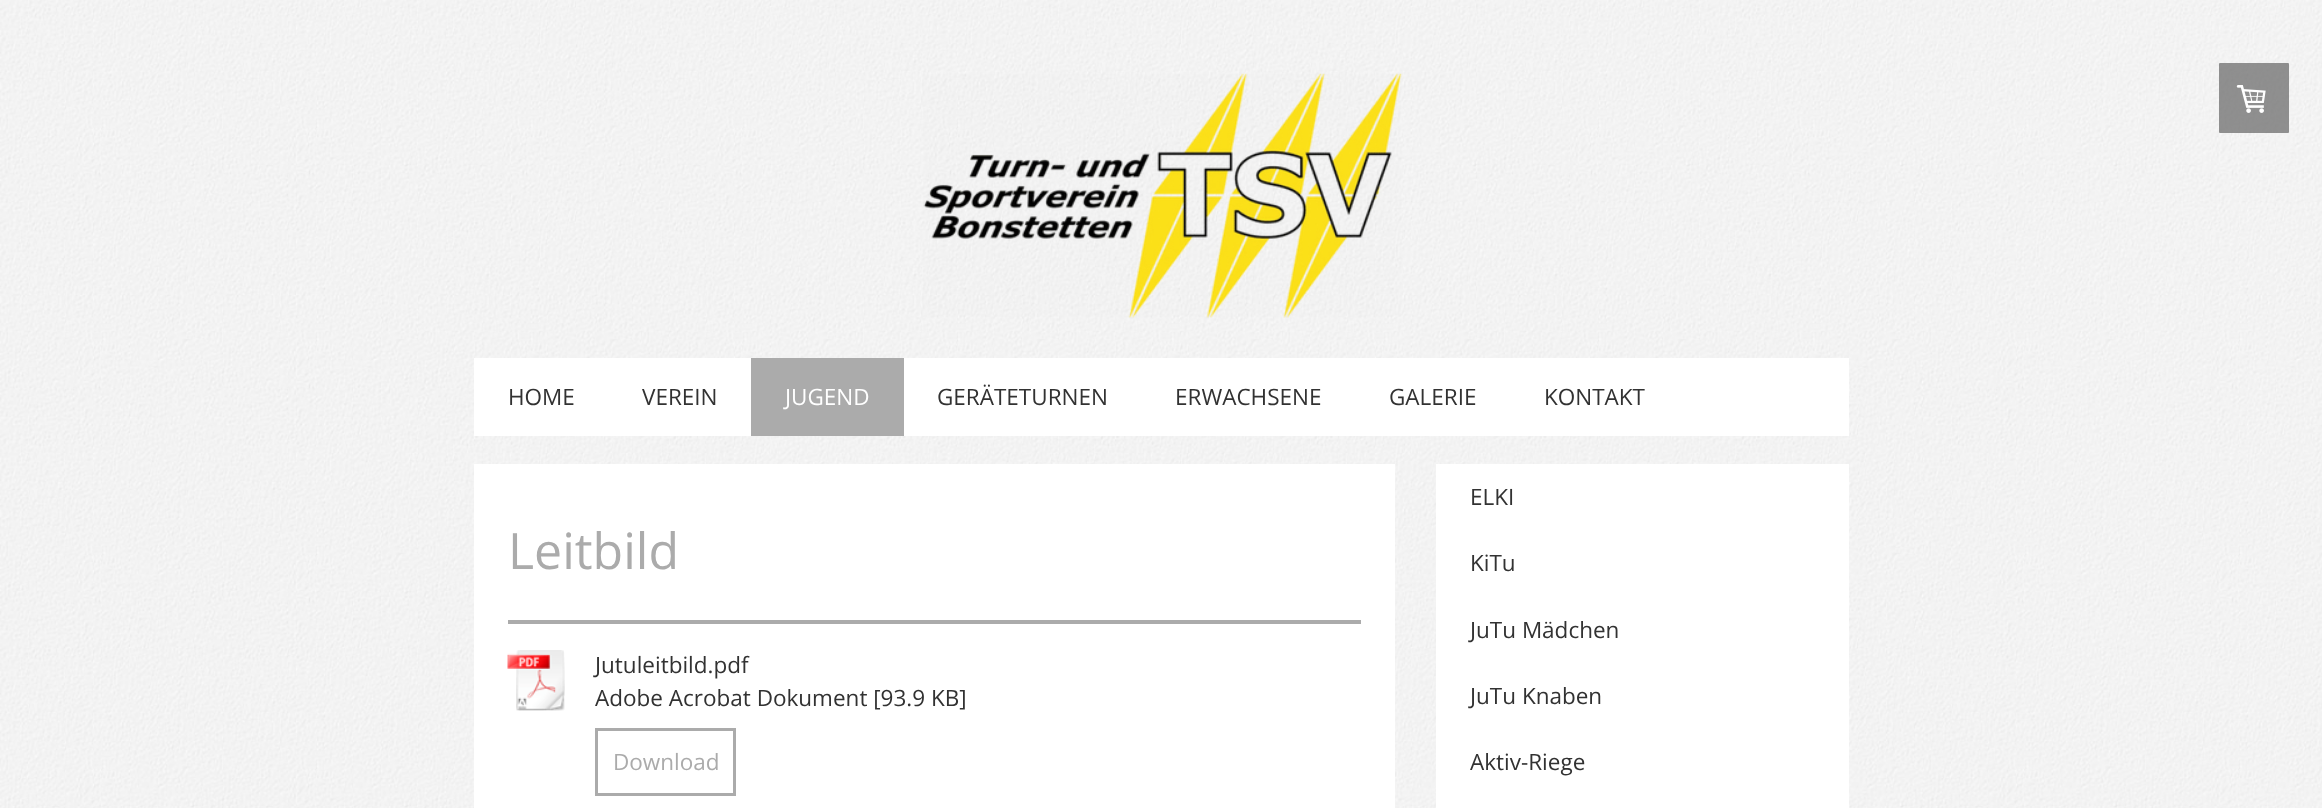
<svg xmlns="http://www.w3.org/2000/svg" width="2322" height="808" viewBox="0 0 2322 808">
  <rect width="100%" height="100%" fill="#fff"/>
  <image x="0" y="0" width="2322" height="808" href="img/1.png"/>
  <rect x="2219" y="63" width="70" height="70" rx="1" fill="#646464b3"/>
  <image x="2236" y="85" width="30" height="28" href="img/2.png"/>
  <image x="923" y="73" width="479" height="245" href="img/3.png"/>
  <path d="M474 358h1375v78H474z" fill="#fff"/>
  <path d="M751 358h153v78H751z" fill="#ababab"/>
  <path d="M474 464h921v344H474z" fill="#fff"/>
  <path d="M508 620h853v1H508z" fill="#ababab"/>
  <path d="M1360 620h1v4H1360z" fill="#ababab"/>
  <path d="M508 621h853v3H508z" fill="#ababab"/>
  <image x="507" y="650" width="58" height="61" href="img/4.png"/>
  <path d="M596.5 729.5h138v65H596.5z" fill="none" stroke="#ababab" stroke-width="3"/>
  <path d="M1436 464h413v344H1436z" fill="#fff"/>
  <g font-family="Open Sans" font-size="22.5" fill="#323232">
    <text x="508" y="405">HOME</text>
    <text x="642" y="405">VEREIN</text>
  </g>
  <text x="785" y="405" font-family="Open Sans" font-size="22.5" fill="#fff">JUGEND</text>
  <g font-family="Open Sans" font-size="22.5" fill="#323232">
    <text x="937" y="405">GERÄTETURNEN</text>
    <text x="1175" y="405">ERWACHSENE</text>
    <text x="1389" y="405">GALERIE</text>
    <text x="1544" y="405">KONTAKT</text>
  </g>
  <text x="508" y="569" font-family="Open Sans" font-size="50" fill="#ababab">Leitbild</text>
  <g font-family="Open Sans" font-size="22.5" fill="#323232">
    <text x="595" y="673">Jutuleitbild.pdf</text>
    <text x="595" y="706">Adobe Acrobat Dokument [93.9 KB]</text>
  </g>
  <text x="613" y="770" font-family="Open Sans" font-size="22.5" fill="#ababab">Download</text>
  <g font-family="Open Sans" font-size="22.5" fill="#323232">
    <text x="1470" y="505">ELKI</text>
    <text x="1470" y="571">KiTu</text>
    <text x="1470" y="638">JuTu Mädchen</text>
    <text x="1470" y="704">JuTu Knaben</text>
    <text x="1470" y="770">Aktiv-Riege</text>
  </g>
</svg>
